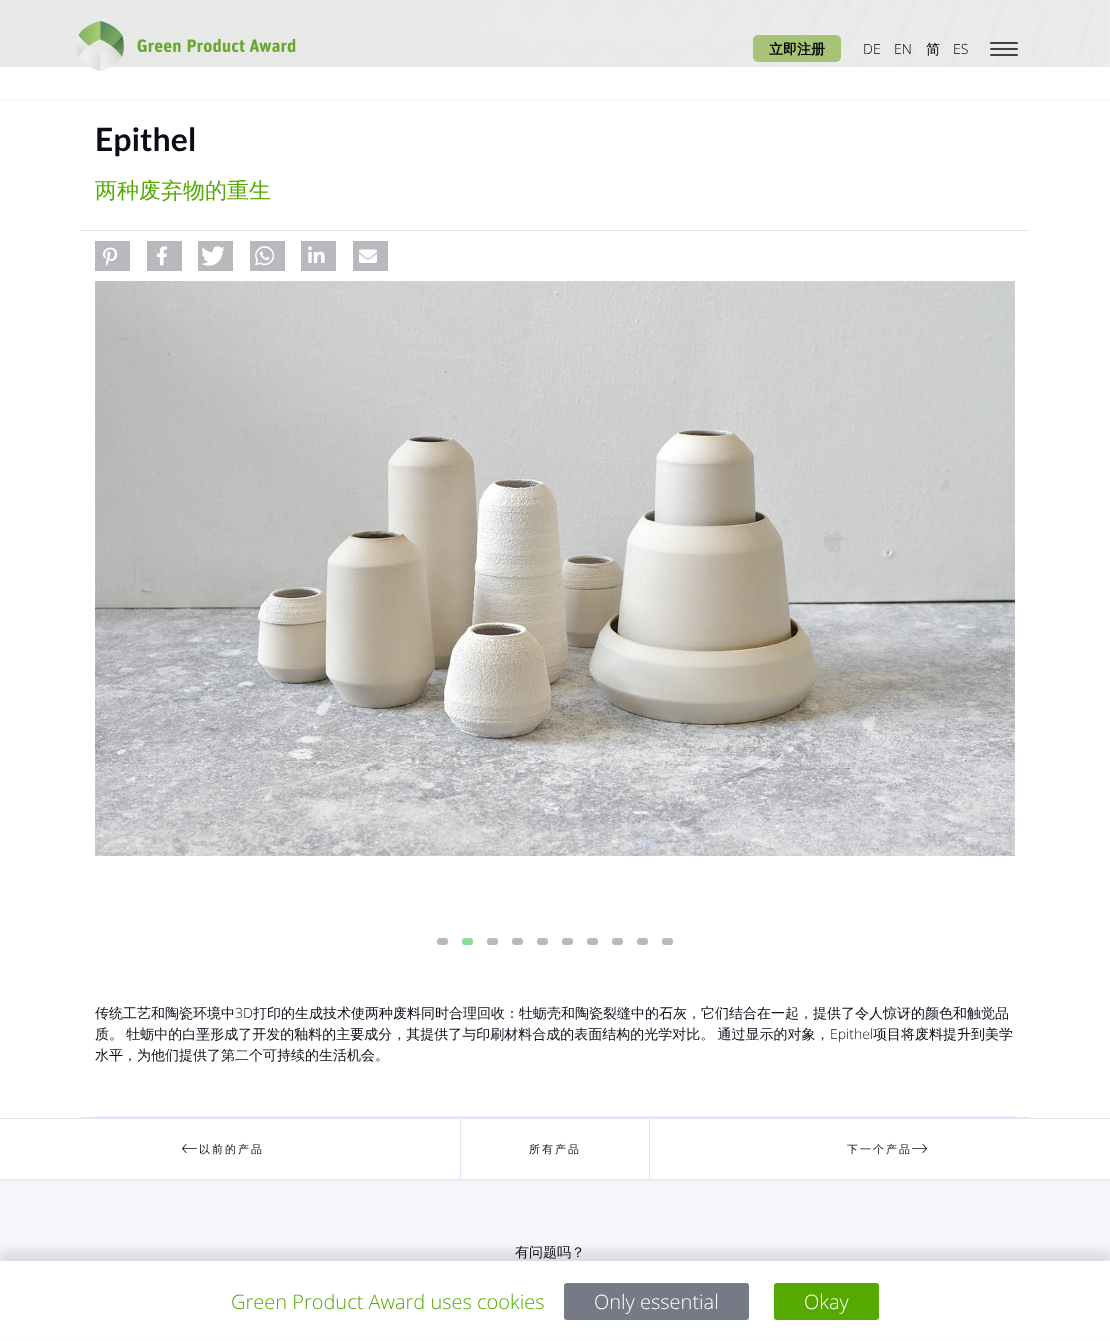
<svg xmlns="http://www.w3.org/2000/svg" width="1110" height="1341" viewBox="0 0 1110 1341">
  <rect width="100%" height="100%" fill="#fff"/>
  <image x="0" y="0" width="1110" height="67" href="img/1.png"/>
  <path d="M0 100h1110v1H0z" fill="#f5f5fa"/>
  <image x="77" y="21" width="219" height="50" href="img/2.png"/>
  <rect x="753" y="35" width="88" height="27" rx="5" fill="#a6c378"/>
  <rect x="990" y="42" width="28" height="2" rx="1" fill="#171724cc"/>
  <rect x="990" y="48" width="28" height="2" rx="1" fill="#171724cc"/>
  <rect x="990" y="54" width="28" height="2" rx="1" fill="#171724cc"/>
  <path d="M80 230h950v1H80z" fill="#e4e4f2"/>
  <path d="M95 241h35v30H95z" fill="#b9b8bd"/>
  <image x="103" y="247" width="15" height="19" href="img/3.png"/>
  <path d="M147 241h35v30H147z" fill="#b9b8bd"/>
  <image x="156" y="246" width="11" height="20" href="img/4.png"/>
  <path d="M198 241h35v30H198z" fill="#b9b8bd"/>
  <image x="201" y="246" width="24" height="20" href="img/5.png"/>
  <path d="M250 241h35v30H250z" fill="#b9b8bd"/>
  <image x="255" y="246" width="20" height="20" href="img/6.png"/>
  <path d="M301 241h35v30H301z" fill="#b9b8bd"/>
  <image x="308" y="246" width="17" height="17" href="img/7.png"/>
  <path d="M353 241h35v30H353z" fill="#b9b8bd"/>
  <image x="359" y="249" width="18" height="14" href="img/8.png"/>
  <image x="95" y="281" width="920" height="575" href="img/9.png"/>
  <rect x="437" y="938" width="11" height="7" rx="3" fill="#b9b9bd"/>
  <rect x="462" y="938" width="11" height="7" rx="3" fill="#8fd999"/>
  <rect x="487" y="938" width="11" height="7" rx="3" fill="#b9b9bd"/>
  <rect x="512" y="938" width="11" height="7" rx="3" fill="#b9b9bd"/>
  <rect x="537" y="938" width="11" height="7" rx="3" fill="#b9b9bd"/>
  <rect x="562" y="938" width="11" height="7" rx="3" fill="#b9b9bd"/>
  <rect x="587" y="938" width="11" height="7" rx="3" fill="#b9b9bd"/>
  <rect x="612" y="938" width="11" height="7" rx="3" fill="#b9b9bd"/>
  <rect x="637" y="938" width="11" height="7" rx="3" fill="#b9b9bd"/>
  <rect x="662" y="938" width="11" height="7" rx="3" fill="#b9b9bd"/>
  <path d="M80 1117h950v1H80z" fill="#e4e4f2"/>
  <path d="M95 1116h920v1H95z" fill="#eeeef7"/>
  <path d="M0 1118h1110v1H0z" fill="#e4e4f2"/>
  <path d="M0 1179h1110v1H0z" fill="#e4e4f2"/>
  <image x="182" y="1144" width="15" height="9" href="img/10.png"/>
  <path d="M649 1119h1v60H649z" fill="#e4e4f2"/>
  <path d="M460 1119h1v60H460z" fill="#e4e4f2"/>
  <image x="912" y="1144" width="15" height="9" href="img/11.png"/>
  <path d="M0 1180h1110v1H0z" fill="#eeeef7"/>
  <path d="M0 1181h1110v80H0z" fill="#f5f5fa"/>
  <path d="M0 1251h1110v80H0z" fill="#0000001a" filter="blur(5px)"/>
  <path d="M0 1261h1110v76H0z" fill="#fff"/>
  <rect x="564" y="1283" width="185" height="37" rx="3" fill="#757a86"/>
  <rect x="774" y="1283" width="105" height="37" rx="3" fill="#55a900"/>
  <text x="769" y="54" font-family="WenQuanYi Zen Hei" font-size="14" font-weight="bold" fill="#000">立即注册</text>
  <g font-family="Open Sans" font-size="14" font-weight="300" fill="#000">
    <text x="863" y="54">DE</text>
    <text x="894" y="54">EN</text>
  </g>
  <text x="926" y="54" font-family="WenQuanYi Zen Hei" font-size="14" font-weight="500" fill="#000">简</text>
  <text x="953" y="54" font-family="Open Sans" font-size="14" font-weight="300" fill="#000">ES</text>
  <text x="95" y="151" font-family="Lato" font-size="32" font-weight="bold" fill="#0c0c17">Epithel</text>
  <text x="95" y="198" font-family="WenQuanYi Zen Hei" font-size="22" font-weight="500" fill="#55a900">两种废弃物的重生</text>
  <text x="95" y="1018" font-family="WenQuanYi Zen Hei" font-size="14" font-weight="500" fill="#0c0c17">传统工艺和陶瓷环境中</text>
  <text x="235" y="1018" font-family="Open Sans" font-size="14" font-weight="300" fill="#0c0c17">3D</text>
  <g font-family="WenQuanYi Zen Hei" font-size="14" font-weight="500" fill="#0c0c17">
    <text x="253" y="1018">打印的生成技术使两种废料同时合理回收：牡蛎壳和陶瓷裂缝中的石灰，它们结合在一起，提供了令人惊讶的颜色和触觉品</text>
    <text x="95" y="1039" word-spacing="-1">质。 牡蛎中的白垩形成了开发的釉料的主要成分，其提供了与印刷材料合成的表面结构的光学对比。 通过显示的对象，</text>
  </g>
  <text x="830" y="1039" font-family="Open Sans" font-size="14" font-weight="300" fill="#0c0c17">Epithel</text>
  <g font-family="WenQuanYi Zen Hei" font-size="14" font-weight="500" fill="#0c0c17">
    <text x="873" y="1039">项目将废料提升到美学</text>
    <text x="95" y="1060">水平，为他们提供了第二个可持续的生活机会。</text>
  </g>
  <g font-family="WenQuanYi Zen Hei" font-size="11" font-weight="500" letter-spacing="2" fill="#0c0c17">
    <text x="199" y="1153">以前的产品</text>
    <text x="529" y="1153">所有产品</text>
    <text x="847" y="1153">下一个产品</text>
  </g>
  <text x="515" y="1257" font-family="WenQuanYi Zen Hei" font-size="14" font-weight="500" fill="#0c0c17">有问题吗？</text>
  <text x="231" y="1309" font-family="Open Sans" font-size="20" font-weight="300" fill="#55a900">Green Product Award uses cookies</text>
  <g font-family="Open Sans" font-size="20" font-weight="300" fill="#fff">
    <text x="594" y="1309">Only essential</text>
    <text x="804" y="1309">Okay</text>
  </g>
</svg>
